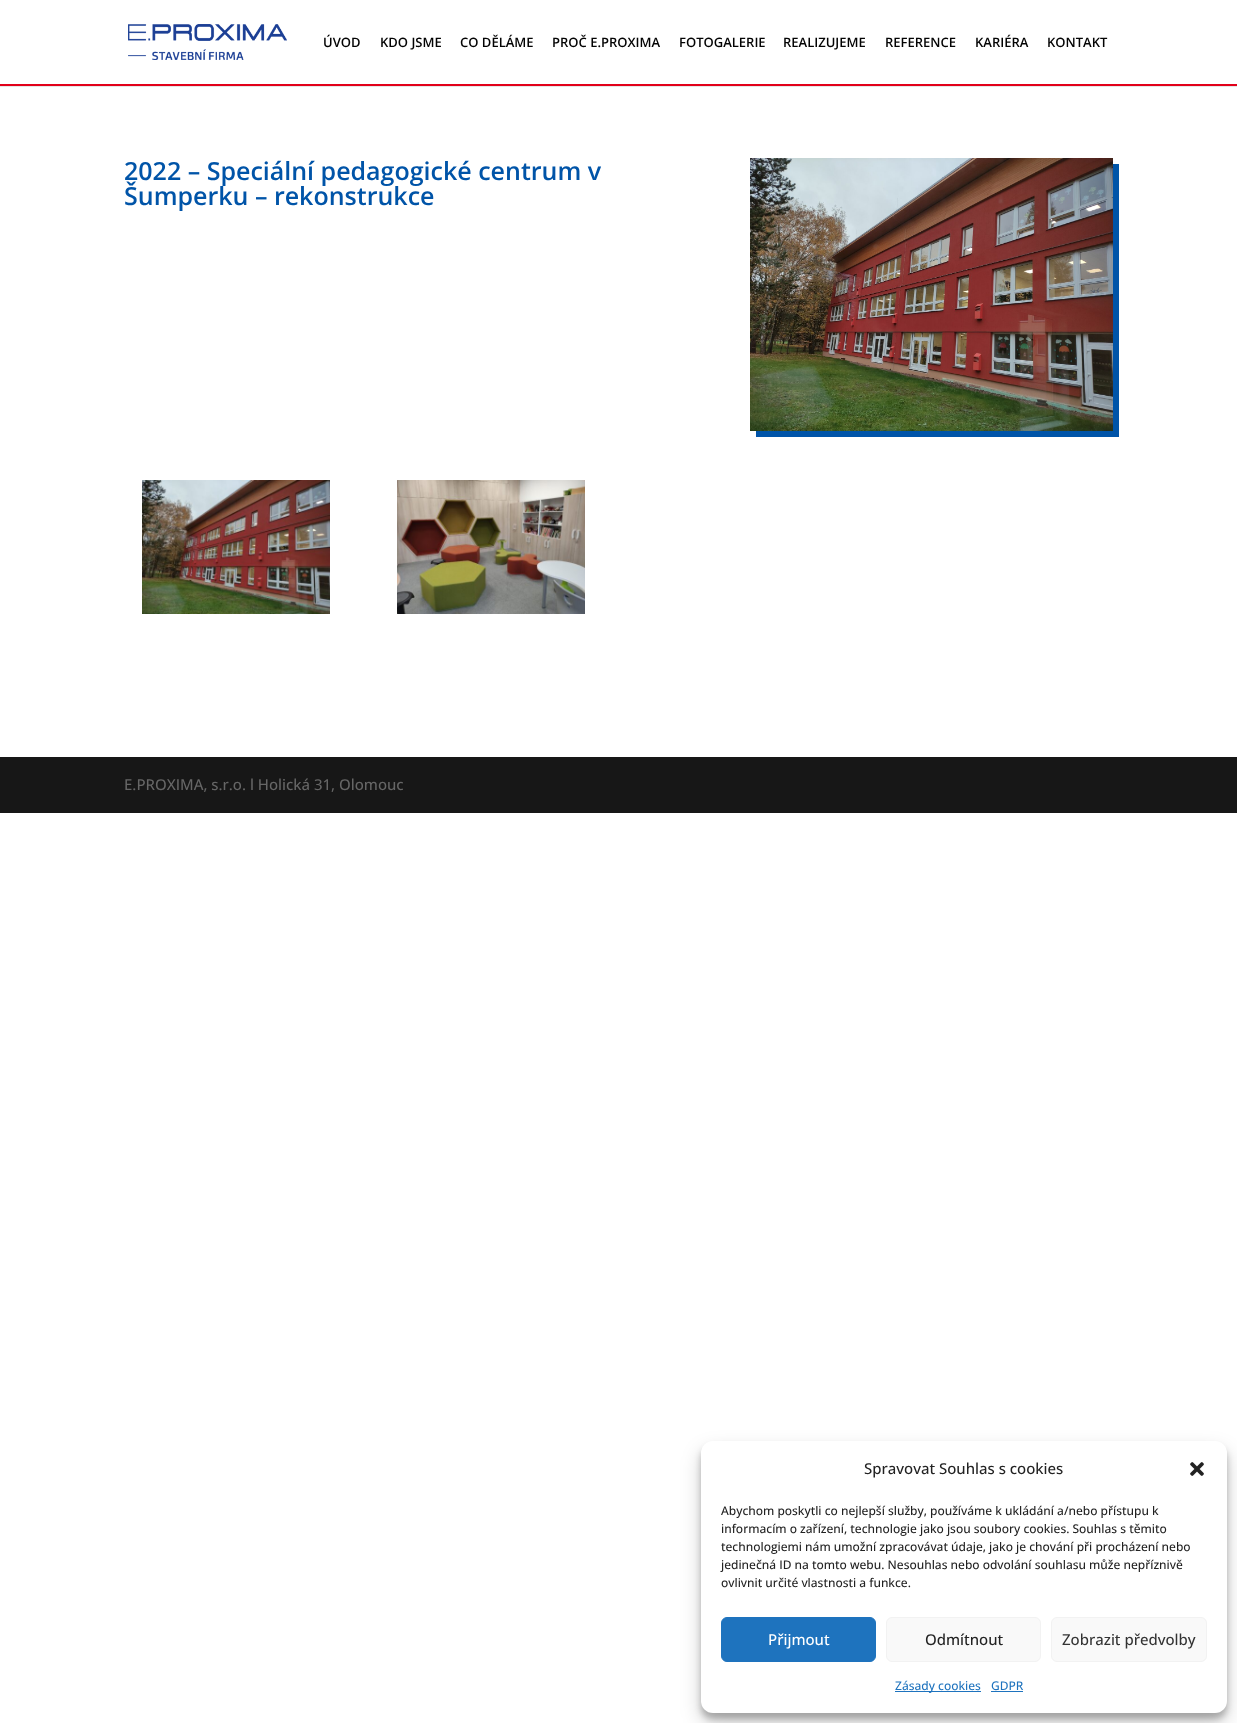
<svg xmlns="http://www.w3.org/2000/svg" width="1237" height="1723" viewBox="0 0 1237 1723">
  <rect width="100%" height="100%" fill="#fff"/>
  <path d="M0 86h1237v1H0z" fill="#e6e6e6"/>
  <path d="M0 84h1237v2H0z" fill="#e2001a"/>
  <image x="128" y="24" width="159" height="36" href="img/1.png"/>
  <path d="M756 164h363v273H756z" fill="#0054a8" filter="blur(0.5px)"/>
  <image x="750" y="158" width="363" height="273" href="img/2.png"/>
  <image x="142" y="480" width="188" height="134" href="img/3.png"/>
  <image x="397" y="480" width="188" height="134" href="img/4.png"/>
  <path d="M0 757h1237v56H0z" fill="#171717"/>
  <rect x="701" y="1447" width="526" height="272" rx="12" fill="#0000003b" filter="blur(3px)"/>
  <rect x="701" y="1451" width="526" height="272" rx="12" fill="#00000030" filter="blur(10px)"/>
  <rect x="701" y="1441" width="526" height="272" rx="12" fill="#fff"/>
  <image x="1190" y="1462" width="14" height="14" href="img/5.png"/>
  <rect x="721.5" y="1617.5" width="154" height="44" rx="5.5" fill="#1e73be" stroke="#1e73be"/>
  <rect x="886.5" y="1617.5" width="154" height="44" rx="5.5" fill="#f9f9f9" stroke="#f2f2f2"/>
  <rect x="1051.5" y="1617.5" width="155" height="44" rx="5.5" fill="#f9f9f9" stroke="#f2f2f2"/>
  <path d="M895 1691h86v1H895z" fill="#1e73be"/>
  <path d="M991 1691h32v1H991z" fill="#1e73be"/>
  <g font-family="Open Sans" font-size="13" font-weight="600" fill="#030303">
    <text x="323" y="47">ÚVOD</text>
    <text x="380" y="47">KDO JSME</text>
    <text x="460" y="47">CO DĚLÁME</text>
    <text x="552" y="47">PROČ E.PROXIMA</text>
    <text x="679" y="47">FOTOGALERIE</text>
    <text x="783" y="47">REALIZUJEME</text>
    <text x="885" y="47">REFERENCE</text>
    <text x="975" y="47">KARIÉRA</text>
    <text x="1047" y="47">KONTAKT</text>
  </g>
  <g font-family="Open Sans" font-size="25" font-weight="600" fill="#0054a8">
    <text x="124" y="180">2022 – Speciální pedagogické centrum v</text>
    <text x="124" y="205">Šumperku – rekonstrukce</text>
  </g>
  <text x="124" y="790" font-family="Open Sans" font-size="15" font-weight="500" fill="#666">E.PROXIMA, s.r.o. l Holická 31, Olomouc</text>
  <text x="864" y="1474" font-family="Open Sans" font-size="15" font-weight="500" fill="#222">Spravovat Souhlas s cookies</text>
  <g font-family="Open Sans" font-size="12" font-weight="500" fill="#222">
    <text x="721" y="1515">Abychom poskytli co nejlepší služby, používáme k ukládání a/nebo přístupu k</text>
    <text x="721" y="1533">informacím o zařízení, technologie jako jsou soubory cookies. Souhlas s těmito</text>
    <text x="721" y="1551">technologiemi nám umožní zpracovávat údaje, jako je chování při procházení nebo</text>
    <text x="721" y="1569">jedinečná ID na tomto webu. Nesouhlas nebo odvolání souhlasu může nepříznivě</text>
    <text x="721" y="1587">ovlivnit určité vlastnosti a funkce.</text>
  </g>
  <text x="768" y="1645" font-family="Open Sans" font-size="15" font-weight="500" fill="#fff">Přijmout</text>
  <text x="925" y="1645" font-family="Open Sans" font-size="15" font-weight="500" fill="#222">Odmítnout</text>
  <text x="1062" y="1645" font-family="Open Sans" font-size="15" font-weight="500" fill="#333">Zobrazit předvolby</text>
  <g font-family="Open Sans" font-size="12" font-weight="500" fill="#1e73be">
    <text x="895" y="1690">Zásady cookies</text>
    <text x="991" y="1690">GDPR</text>
  </g>
</svg>
